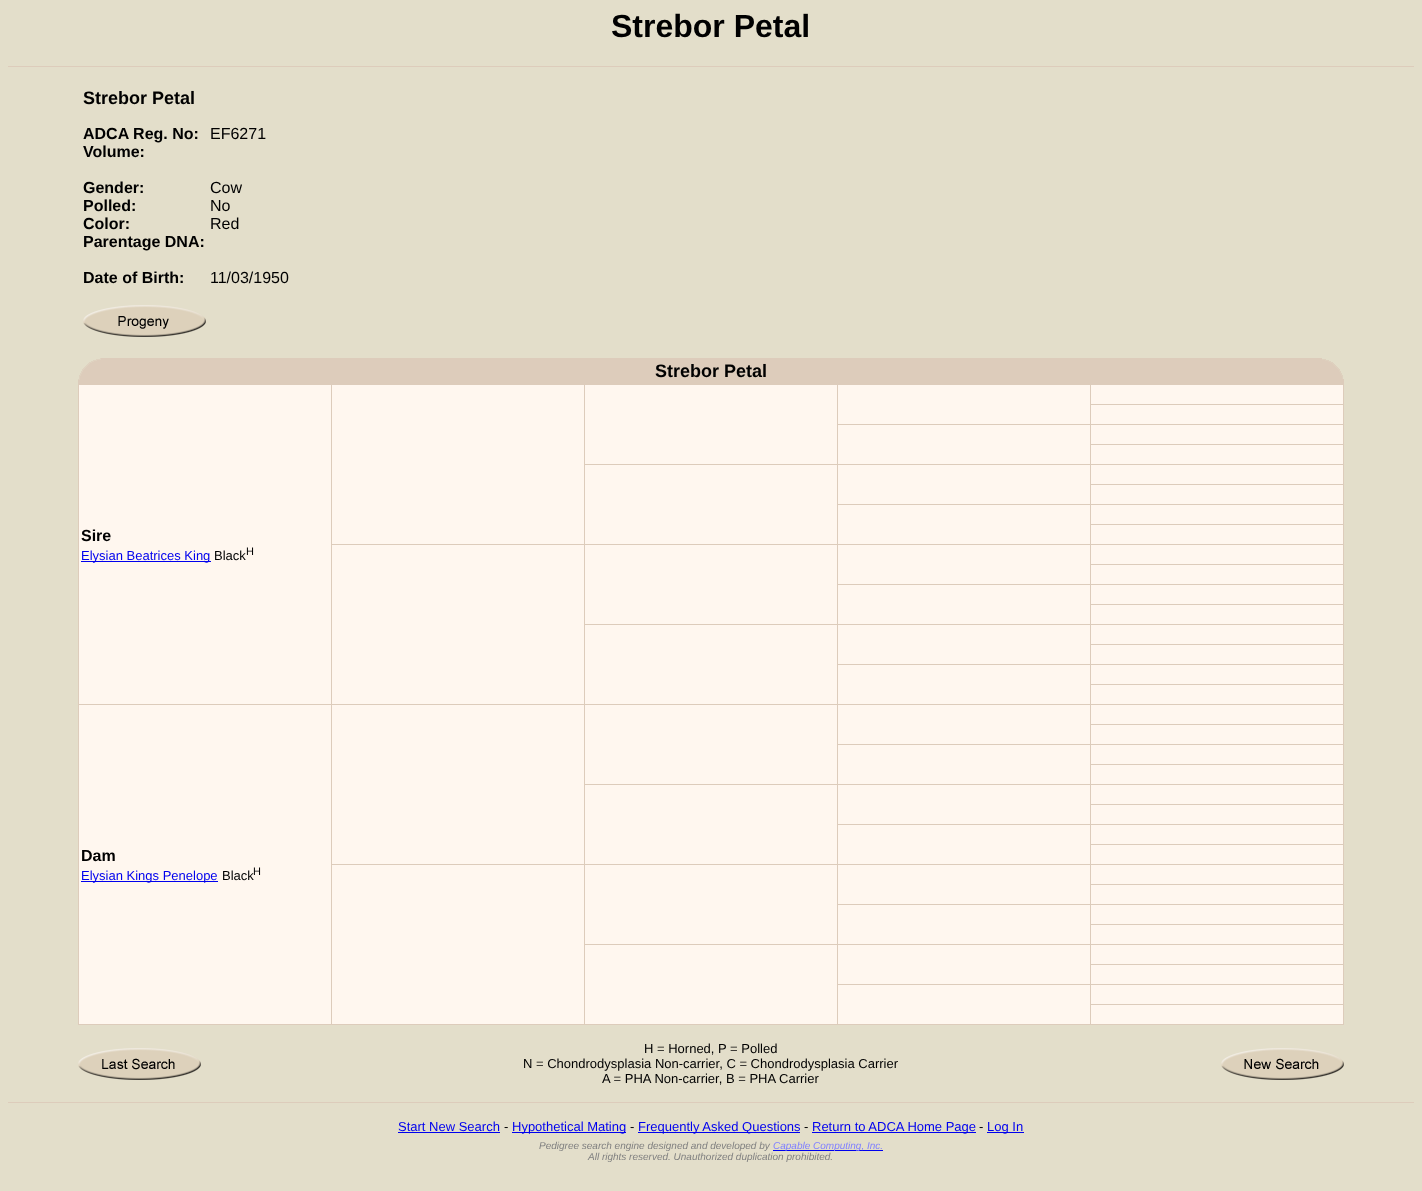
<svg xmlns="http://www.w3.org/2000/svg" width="1422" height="1191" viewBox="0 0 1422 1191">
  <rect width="100%" height="100%" fill="#e3deca"/>
  <path d="M8 66h1406v1H8z" fill="#dcb"/>
  <image x="83" y="305" width="123" height="32" href="img/1.png"/>
  <path d="M78 358h1266v667H78z" fill="#dcb"/>
  <image x="78" y="358" width="23" height="22" href="img/2.png"/>
  <image x="1322" y="358" width="22" height="21" href="img/3.png"/>
  <path d="M1091 405h252v19H1091z" fill="#fff7ef"/>
  <path d="M838 425h252v39H838z" fill="#fff7ef"/>
  <path d="M1091 425h252v19H1091z" fill="#fff7ef"/>
  <path d="M1091 445h252v19H1091z" fill="#fff7ef"/>
  <path d="M585 465h252v79H585z" fill="#fff7ef"/>
  <path d="M838 465h252v39H838z" fill="#fff7ef"/>
  <path d="M1091 465h252v19H1091z" fill="#fff7ef"/>
  <path d="M1091 485h252v19H1091z" fill="#fff7ef"/>
  <path d="M838 505h252v39H838z" fill="#fff7ef"/>
  <path d="M1091 505h252v19H1091z" fill="#fff7ef"/>
  <path d="M332 385h252v159H332z" fill="#fff7ef"/>
  <path d="M585 385h252v79H585z" fill="#fff7ef"/>
  <path d="M838 385h252v39H838z" fill="#fff7ef"/>
  <path d="M1091 385h252v19H1091z" fill="#fff7ef"/>
  <path d="M79 385h252v319H79z" fill="#fff7ef"/>
  <path d="M81 561h130v1H81z" fill="#00e"/>
  <path d="M1091 525h252v19H1091z" fill="#fff7ef"/>
  <path d="M332 545h252v159H332z" fill="#fff7ef"/>
  <path d="M585 545h252v79H585z" fill="#fff7ef"/>
  <path d="M838 545h252v39H838z" fill="#fff7ef"/>
  <path d="M1091 545h252v19H1091z" fill="#fff7ef"/>
  <path d="M1091 565h252v19H1091z" fill="#fff7ef"/>
  <path d="M838 585h252v39H838z" fill="#fff7ef"/>
  <path d="M1091 585h252v19H1091z" fill="#fff7ef"/>
  <path d="M1091 605h252v19H1091z" fill="#fff7ef"/>
  <path d="M585 625h252v79H585z" fill="#fff7ef"/>
  <path d="M838 625h252v39H838z" fill="#fff7ef"/>
  <path d="M1091 625h252v19H1091z" fill="#fff7ef"/>
  <path d="M1091 645h252v19H1091z" fill="#fff7ef"/>
  <path d="M838 665h252v39H838z" fill="#fff7ef"/>
  <path d="M1091 665h252v19H1091z" fill="#fff7ef"/>
  <path d="M1091 685h252v19H1091z" fill="#fff7ef"/>
  <path d="M1091 725h252v19H1091z" fill="#fff7ef"/>
  <path d="M838 745h252v39H838z" fill="#fff7ef"/>
  <path d="M1091 745h252v19H1091z" fill="#fff7ef"/>
  <path d="M1091 765h252v19H1091z" fill="#fff7ef"/>
  <path d="M585 785h252v79H585z" fill="#fff7ef"/>
  <path d="M838 785h252v39H838z" fill="#fff7ef"/>
  <path d="M1091 785h252v19H1091z" fill="#fff7ef"/>
  <path d="M1091 805h252v19H1091z" fill="#fff7ef"/>
  <path d="M838 825h252v39H838z" fill="#fff7ef"/>
  <path d="M1091 825h252v19H1091z" fill="#fff7ef"/>
  <path d="M332 705h252v159H332z" fill="#fff7ef"/>
  <path d="M585 705h252v79H585z" fill="#fff7ef"/>
  <path d="M838 705h252v39H838z" fill="#fff7ef"/>
  <path d="M1091 705h252v19H1091z" fill="#fff7ef"/>
  <path d="M79 705h252v319H79z" fill="#fff7ef"/>
  <path d="M81 881h137v1H81z" fill="#00e"/>
  <path d="M1091 845h252v19H1091z" fill="#fff7ef"/>
  <path d="M332 865h252v159H332z" fill="#fff7ef"/>
  <path d="M585 865h252v79H585z" fill="#fff7ef"/>
  <path d="M838 865h252v39H838z" fill="#fff7ef"/>
  <path d="M1091 865h252v19H1091z" fill="#fff7ef"/>
  <path d="M1091 885h252v19H1091z" fill="#fff7ef"/>
  <path d="M838 905h252v39H838z" fill="#fff7ef"/>
  <path d="M1091 905h252v19H1091z" fill="#fff7ef"/>
  <path d="M1091 925h252v19H1091z" fill="#fff7ef"/>
  <path d="M585 945h252v79H585z" fill="#fff7ef"/>
  <path d="M838 945h252v39H838z" fill="#fff7ef"/>
  <path d="M1091 945h252v19H1091z" fill="#fff7ef"/>
  <path d="M1091 965h252v19H1091z" fill="#fff7ef"/>
  <path d="M838 985h252v39H838z" fill="#fff7ef"/>
  <path d="M1091 985h252v19H1091z" fill="#fff7ef"/>
  <path d="M1091 1005h252v19H1091z" fill="#fff7ef"/>
  <image x="78" y="1048" width="123" height="32" href="img/4.png"/>
  <image x="1221" y="1048" width="123" height="32" href="img/5.png"/>
  <path d="M8 1102h1406v1H8z" fill="#dcb"/>
  <path d="M398 1132h102v1H398z" fill="#00e"/>
  <path d="M512 1132h114v1H512z" fill="#00e"/>
  <path d="M638 1132h162v1H638z" fill="#00e"/>
  <path d="M812 1132h164v1H812z" fill="#00e"/>
  <path d="M987 1132h37v1H987z" fill="#00e"/>
  <path d="M773 1150h110v1H773z" fill="#00e"/>
  <text x="611" y="37" font-family="Liberation Sans" font-size="32" font-weight="bold" fill="#000">Strebor Petal</text>
  <text x="83" y="104" font-family="Liberation Sans" font-size="18" font-weight="bold" fill="#000">Strebor Petal</text>
  <text x="83" y="139" font-family="Liberation Sans" font-size="16" font-weight="bold" fill="#000">ADCA Reg. No:</text>
  <text x="210" y="139" font-family="Liberation Sans" font-size="16" fill="#000">EF6271</text>
  <g font-family="Liberation Sans" font-size="16" font-weight="bold" fill="#000">
    <text x="83" y="157">Volume:</text>
    <text x="83" y="193">Gender:</text>
  </g>
  <text x="210" y="193" font-family="Liberation Sans" font-size="16" fill="#000">Cow</text>
  <text x="83" y="211" font-family="Liberation Sans" font-size="16" font-weight="bold" fill="#000">Polled:</text>
  <text x="210" y="211" font-family="Liberation Sans" font-size="16" fill="#000">No</text>
  <text x="83" y="229" font-family="Liberation Sans" font-size="16" font-weight="bold" fill="#000">Color:</text>
  <text x="210" y="229" font-family="Liberation Sans" font-size="16" fill="#000">Red</text>
  <g font-family="Liberation Sans" font-size="16" font-weight="bold" fill="#000">
    <text x="83" y="247">Parentage DNA:</text>
    <text x="83" y="283">Date of Birth:</text>
  </g>
  <text x="210" y="283" font-family="Liberation Sans" font-size="16" fill="#000">11/03/1950</text>
  <text x="655" y="377" font-family="Liberation Sans" font-size="18" font-weight="bold" fill="#000">Strebor Petal</text>
  <text x="81" y="541" font-family="Liberation Sans" font-size="16" font-weight="bold" fill="#000">Sire</text>
  <text x="81" y="560" font-family="Liberation Sans" font-size="13" fill="#00e">Elysian Beatrices King</text>
  <text x="214" y="560" font-family="Liberation Sans" font-size="13" fill="#000">Black</text>
  <text x="246" y="555" font-family="Liberation Sans" font-size="11" fill="#000">H</text>
  <text x="81" y="861" font-family="Liberation Sans" font-size="16" font-weight="bold" fill="#000">Dam</text>
  <text x="81" y="880" font-family="Liberation Sans" font-size="13" fill="#00e">Elysian Kings Penelope</text>
  <text x="222" y="880" font-family="Liberation Sans" font-size="13" fill="#000">Black</text>
  <text x="253" y="875" font-family="Liberation Sans" font-size="11" fill="#000">H</text>
  <g font-family="Liberation Sans" font-size="13" fill="#000">
    <text x="644" y="1053">H = Horned, P = Polled</text>
    <text x="523" y="1068">N = Chondrodysplasia Non-carrier, C = Chondrodysplasia Carrier</text>
    <text x="602" y="1083">A = PHA Non-carrier, B = PHA Carrier</text>
  </g>
  <text x="398" y="1131" font-family="Liberation Sans" font-size="13" fill="#00e">Start New Search</text>
  <text x="504" y="1131" font-family="Liberation Sans" font-size="13" fill="#000">-</text>
  <text x="512" y="1131" font-family="Liberation Sans" font-size="13" fill="#00e">Hypothetical Mating</text>
  <text x="630" y="1131" font-family="Liberation Sans" font-size="13" fill="#000">-</text>
  <text x="638" y="1131" font-family="Liberation Sans" font-size="13" fill="#00e">Frequently Asked Questions</text>
  <text x="804" y="1131" font-family="Liberation Sans" font-size="13" fill="#000">-</text>
  <text x="812" y="1131" font-family="Liberation Sans" font-size="13" fill="#00e">Return to ADCA Home Page</text>
  <text x="979" y="1131" font-family="Liberation Sans" font-size="13" fill="#000">-</text>
  <text x="987" y="1131" font-family="Liberation Sans" font-size="13" fill="#00e">Log In</text>
  <text x="539" y="1149" font-family="Liberation Sans" font-size="10" font-style="italic" fill="#808080">Pedigree search engine designed and developed by</text>
  <text x="773" y="1149" font-family="Liberation Sans" font-size="10" font-style="italic" fill="#8080ff">Capable Computing, Inc.</text>
  <text x="588" y="1160" font-family="Liberation Sans" font-size="10" font-style="italic" fill="#808080">All rights reserved. Unauthorized duplication prohibited.</text>
</svg>
